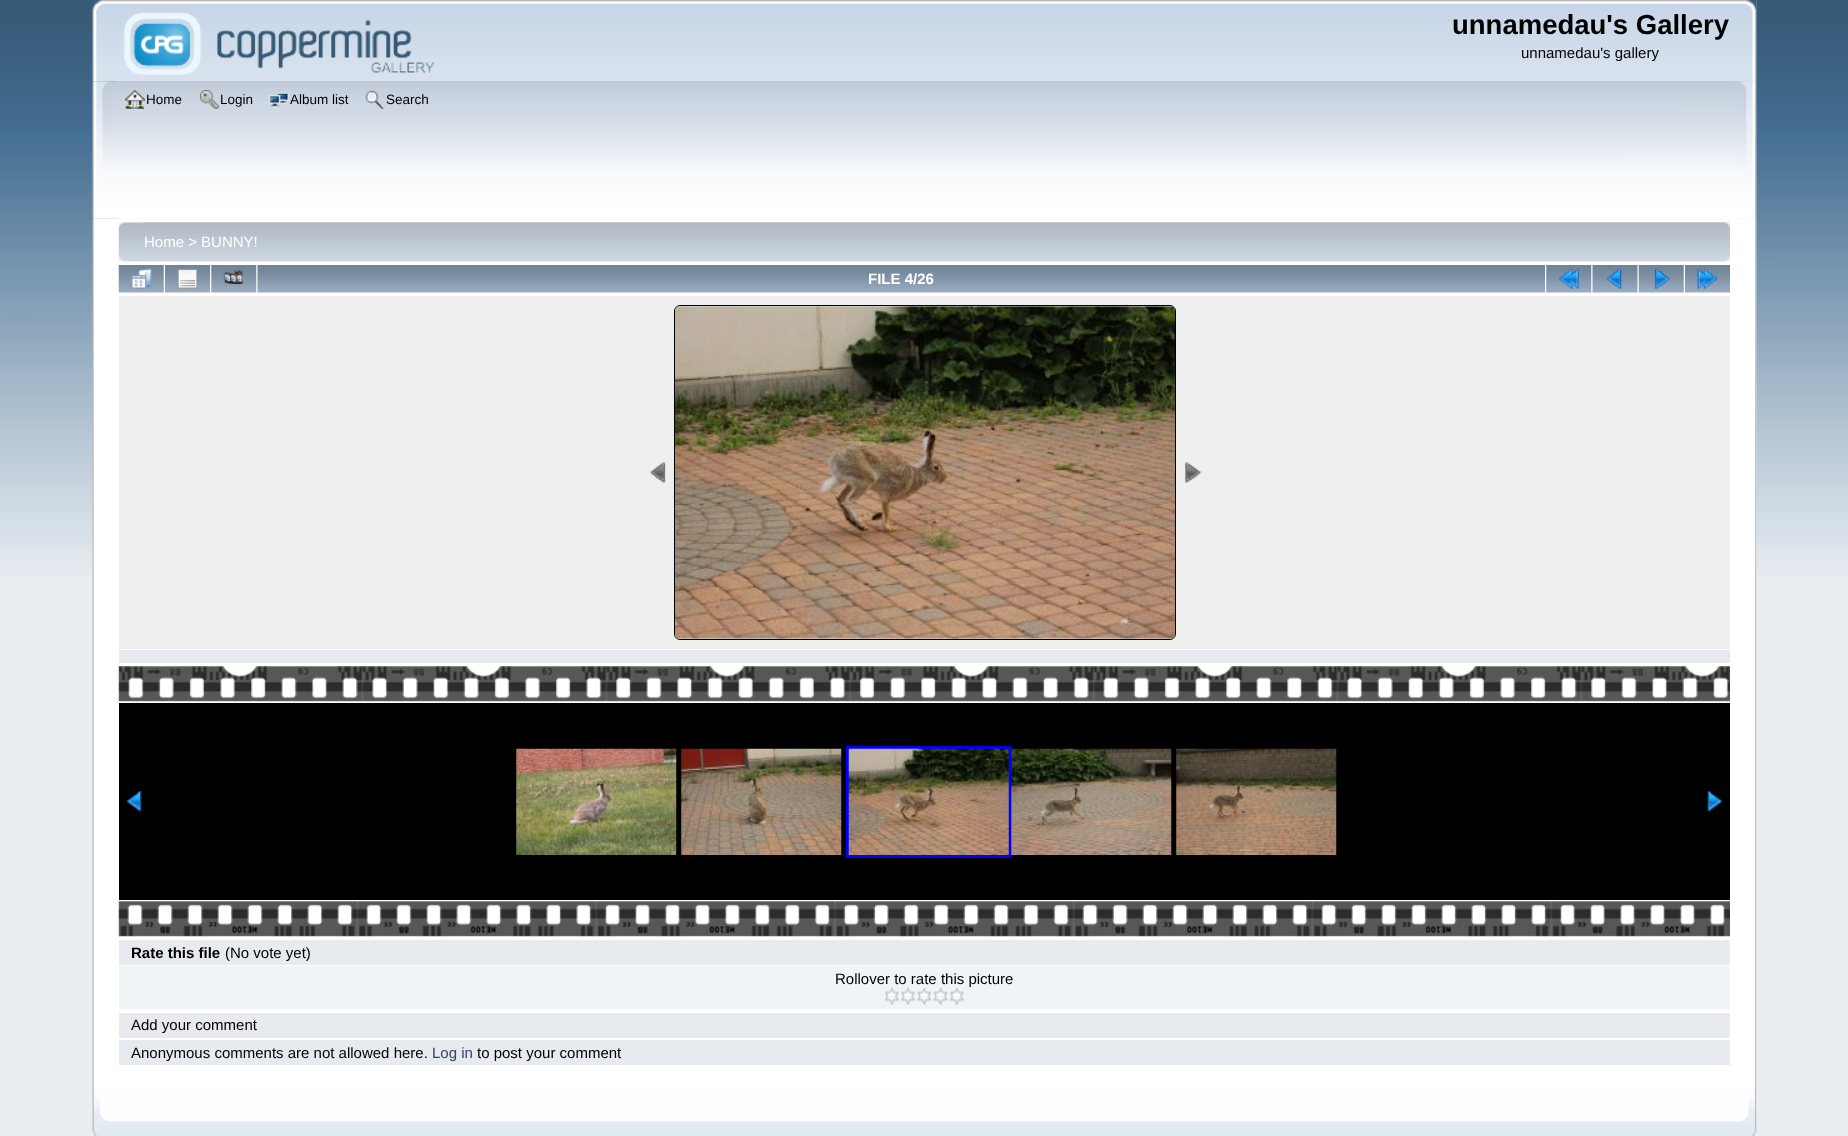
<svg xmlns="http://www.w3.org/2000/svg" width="1848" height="1136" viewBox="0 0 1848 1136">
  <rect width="100%" height="100%" fill="#e9eef2"/>
  <image x="0" y="0" width="1848" height="577" href="img/1.png"/>
  <image x="92" y="0" width="1665" height="82" href="img/2.png"/>
  <image x="117" y="0" width="1640" height="82" href="img/3.png"/>
  <image x="123" y="12" width="311" height="63" href="img/4.png"/>
  <image x="92" y="81" width="1665" height="138" href="img/5.png"/>
  <image x="117" y="81" width="1640" height="138" href="img/6.png"/>
  <image x="125" y="90" width="20" height="20" href="img/7.png"/>
  <image x="199" y="90" width="20" height="19" href="img/8.png"/>
  <image x="268" y="92" width="21" height="16" href="img/9.png"/>
  <image x="365" y="90" width="20" height="19" href="img/10.png"/>
  <image x="92" y="218" width="1665" height="867" href="img/11.png"/>
  <image x="1755" y="218" width="2" height="867" href="img/12.png"/>
  <image x="118" y="222" width="1612" height="40" href="img/13.png"/>
  <image x="143" y="222" width="1587" height="40" href="img/14.png"/>
  <image x="118" y="265" width="46" height="28" href="img/15.png"/>
  <image x="131" y="268" width="21" height="21" href="img/16.png"/>
  <image x="165" y="265" width="45" height="28" href="img/17.png"/>
  <image x="177" y="268" width="21" height="21" href="img/18.png"/>
  <image x="211" y="265" width="46" height="28" href="img/19.png"/>
  <image x="223" y="270" width="21" height="15" href="img/20.png"/>
  <image x="257" y="265" width="1288" height="28" href="img/21.png"/>
  <image x="1546" y="265" width="46" height="28" href="img/19.png"/>
  <image x="1558" y="268" width="21" height="21" href="img/22.png"/>
  <image x="1592" y="265" width="46" height="28" href="img/23.png"/>
  <image x="1606" y="268" width="16" height="21" href="img/24.png"/>
  <image x="1638" y="265" width="46" height="28" href="img/15.png"/>
  <image x="1654" y="268" width="17" height="21" href="img/25.png"/>
  <image x="1685" y="265" width="45" height="28" href="img/17.png"/>
  <image x="1697" y="268" width="21" height="21" href="img/26.png"/>
  <path d="M119 296h1611v353H119z" fill="#efefef"/>
  <image x="650" y="462" width="16" height="21" href="img/27.png"/>
  <rect x="674.5" y="305.5" width="501" height="334" rx="5.5" fill="none" stroke="#000"/>
  <image x="675" y="306" width="500" height="333" href="img/28.png"/>
  <image x="1185" y="462" width="17" height="21" href="img/29.png"/>
  <path d="M119 650h1611v13H119z" fill="#e7eaef"/>
  <image x="118" y="666" width="1612" height="36" href="img/30.png"/>
  <path d="M119 703h1611v197H119z" fill="#000"/>
  <image x="126" y="791" width="16" height="21" href="img/31.png"/>
  <image x="516" y="748" width="161" height="107" href="img/32.png"/>
  <image x="681" y="748" width="161" height="107" href="img/33.png"/>
  <path d="M847.5 747.5h162v109H847.5z" fill="none" stroke="#00f" stroke-width="3"/>
  <image x="848" y="748" width="161" height="107" href="img/34.png"/>
  <image x="1011" y="748" width="161" height="107" href="img/35.png"/>
  <image x="1176" y="748" width="161" height="107" href="img/36.png"/>
  <image x="1707" y="791" width="16" height="21" href="img/37.png"/>
  <image x="118" y="901" width="1612" height="36" href="img/38.png"/>
  <path d="M119 940h1611v25H119z" fill="#e7eaef"/>
  <path d="M119 966h1611v43H119z" fill="#f0f4f7"/>
  <path d="M119 1013h1611v25H119z" fill="#e7eaef"/>
  <path d="M119 1040h1611v25H119z" fill="#e7eaef"/>
  <image x="92" y="1085" width="1665" height="51" href="img/43.png"/>
  <image x="1741" y="1085" width="16" height="51" href="img/44.png"/>
  <text x="1452" y="34" font-family="Liberation Sans" font-size="27.5" font-weight="bold" fill="#000">unnamedau's Gallery</text>
  <text x="1521" y="58" font-family="Liberation Sans" font-size="15" fill="#000">unnamedau's gallery</text>
  <g font-family="Liberation Sans" font-size="13.5" fill="#000">
    <text x="146" y="104">Home</text>
    <text x="220" y="104">Login</text>
    <text x="290" y="104">Album list</text>
    <text x="386" y="104">Search</text>
  </g>
  <text x="144" y="247" font-family="Liberation Sans" font-size="15" fill="#fff">Home &gt; BUNNY!</text>
  <text x="868" y="284" font-family="Liberation Sans" font-size="15" font-weight="bold" fill="#fff">FILE 4/26</text>
  <text x="131" y="958" font-family="Liberation Sans" font-size="15" font-weight="bold" fill="#000">Rate this file</text>
  <g font-family="Liberation Sans" font-size="15" fill="#000">
    <text x="225" y="958">(No vote yet)</text>
    <text x="835" y="984">Rollover to rate this picture</text>
  </g>
  <image x="884" y="987" width="16" height="18" href="img/39.png"/>
  <image x="900" y="987" width="16" height="18" href="img/40.png"/>
  <image x="916" y="987" width="16" height="18" href="img/41.png"/>
  <image x="932" y="987" width="16" height="18" href="img/42.png"/>
  <image x="949" y="987" width="16" height="18" href="img/39.png"/>
  <g font-family="Liberation Sans" font-size="15" fill="#000">
    <text x="131" y="1030">Add your comment</text>
    <text x="131" y="1058">Anonymous comments are not allowed here.</text>
  </g>
  <text x="432" y="1058" font-family="Liberation Sans" font-size="15" fill="#346">Log in</text>
  <text x="477" y="1058" font-family="Liberation Sans" font-size="15" fill="#000">to post your comment</text>
</svg>
